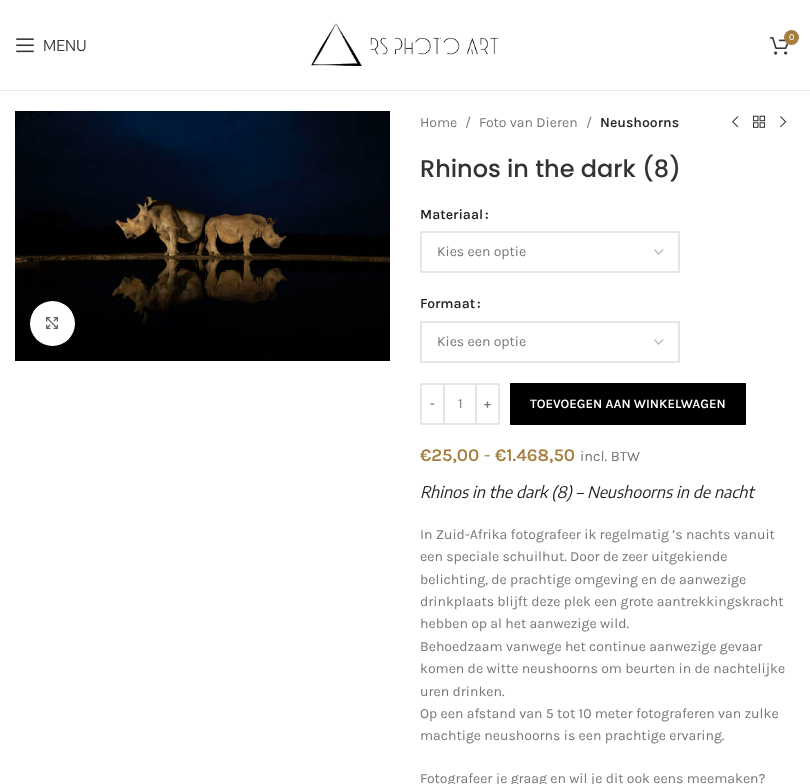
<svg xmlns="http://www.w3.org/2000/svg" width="810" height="784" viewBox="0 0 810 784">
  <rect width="100%" height="100%" fill="#fff"/>
  <path d="M0 90h810v1H0z" fill="#e6e6e6"/>
  <image x="311" y="23" width="188" height="43" href="img/1.png"/>
  <image x="770" y="37" width="19" height="18" href="img/2.png"/>
  <circle cx="791.5" cy="37.5" r="7.5" fill="#a57d3e"/>
  <image x="16" y="38" width="18" height="15" href="img/3.png"/>
  <image x="15" y="111" width="375" height="250" href="img/4.png"/>
  <circle cx="52.5" cy="323.5" r="22.5" fill="#fff"/>
  <image x="46" y="317" width="12" height="12" href="img/5.png"/>
  <image x="732" y="116" width="7" height="12" href="img/6.png"/>
  <image x="753" y="115" width="12" height="13" href="img/7.png"/>
  <image x="780" y="116" width="7" height="12" href="img/8.png"/>
  <path d="M654.5 249.5L658.5 254L663 249.5" fill="none" stroke="#bbb" stroke-width="1.4"/>
  <path d="M421 232h258v40H421z" fill="none" stroke="#e6e6e6" stroke-width="2"/>
  <path d="M654.5 339.5L658.5 344L663 339.5" fill="none" stroke="#bbb" stroke-width="1.4"/>
  <path d="M421 322h258v40H421z" fill="none" stroke="#e6e6e6" stroke-width="2"/>
  <path d="M421 384h23v40H421z" fill="none" stroke="#e6e6e6" stroke-width="2"/>
  <path d="M445 383h30v2H445z" fill="#e6e6e6"/>
  <path d="M445 423h30v2H445z" fill="#e6e6e6"/>
  <path d="M476 384h23v40H476z" fill="none" stroke="#e6e6e6" stroke-width="2"/>
  <path d="M510 383h236v42H510z" fill="#000"/>
  <text x="789" y="40" font-family="Karla" font-size="9" fill="#fff">0</text>
  <text x="43" y="51" font-family="Encode Sans Condensed" font-size="15" fill="#333">MENU</text>
  <g font-family="Karla" font-size="14" fill="#767676">
    <text x="420" y="127">Home</text>
    <text x="465" y="127">/</text>
    <text x="479" y="127">Foto van Dieren</text>
    <text x="586" y="127">/</text>
  </g>
  <text x="600" y="127" font-family="Karla" font-size="14" font-weight="600" fill="#242424">Neushoorns</text>
  <text x="420" y="177" font-family="Poppins" font-size="24" font-weight="500" fill="#333">Rhinos in the dark (8)</text>
  <g font-family="Karla" font-size="14" font-weight="600" fill="#242424">
    <text x="420" y="219">Materiaal</text>
    <text x="485" y="219">:</text>
  </g>
  <text x="437" y="256" font-family="Karla" font-size="14" fill="#767676">Kies een optie</text>
  <g font-family="Karla" font-size="14" font-weight="600" fill="#242424">
    <text x="420" y="308">Formaat</text>
    <text x="477" y="308">:</text>
  </g>
  <text x="437" y="346" font-family="Karla" font-size="14" fill="#767676">Kies een optie</text>
  <text x="430" y="408" font-family="Karla" font-size="13" font-weight="600" fill="#767676">-</text>
  <text x="458" y="408" font-family="Karla" font-size="14" fill="#767676">1</text>
  <text x="484" y="408" font-family="Karla" font-size="13" font-weight="600" fill="#767676">+</text>
  <text x="530" y="408" font-family="Karla" font-size="13" font-weight="600" fill="#fff">TOEVOEGEN AAN WINKELWAGEN</text>
  <text x="420" y="461" font-family="Karla" font-size="18" font-weight="600" fill="#a57d3e">€25,00</text>
  <text x="484" y="461" font-family="Karla" font-size="18" fill="#a57d3e">-</text>
  <text x="495" y="461" font-family="Karla" font-size="18" font-weight="600" fill="#a57d3e">€1.468,50</text>
  <text x="580" y="461" font-family="Karla" font-size="14.5" fill="#767676">incl. BTW</text>
  <text x="420" y="498" font-family="Encode Sans Condensed" font-size="16" font-style="italic" fill="#242424">Rhinos in the dark (8) – Neushoorns in de nacht</text>
  <g font-family="Karla" font-size="14" fill="#767676">
    <text x="420" y="539">In Zuid-Afrika fotografeer ik regelmatig ’s nachts vanuit</text>
    <text x="420" y="561">een speciale schuilhut. Door de zeer uitgekiende</text>
    <text x="420" y="584">belichting, de prachtige omgeving en de aanwezige</text>
    <text x="420" y="606">drinkplaats blijft deze plek een grote aantrekkingskracht</text>
    <text x="420" y="628">hebben op al het aanwezige wild.</text>
    <text x="420" y="651">Behoedzaam vanwege het continue aanwezige gevaar</text>
    <text x="420" y="673">komen de witte neushoorns om beurten in de nachtelijke</text>
    <text x="420" y="696">uren drinken.</text>
    <text x="420" y="718">Op een afstand van 5 tot 10 meter fotograferen van zulke</text>
    <text x="420" y="740">machtige neushoorns is een prachtige ervaring.</text>
    <text x="420" y="783">Fotografeer je graag en wil je dit ook eens meemaken?</text>
  </g>
</svg>
